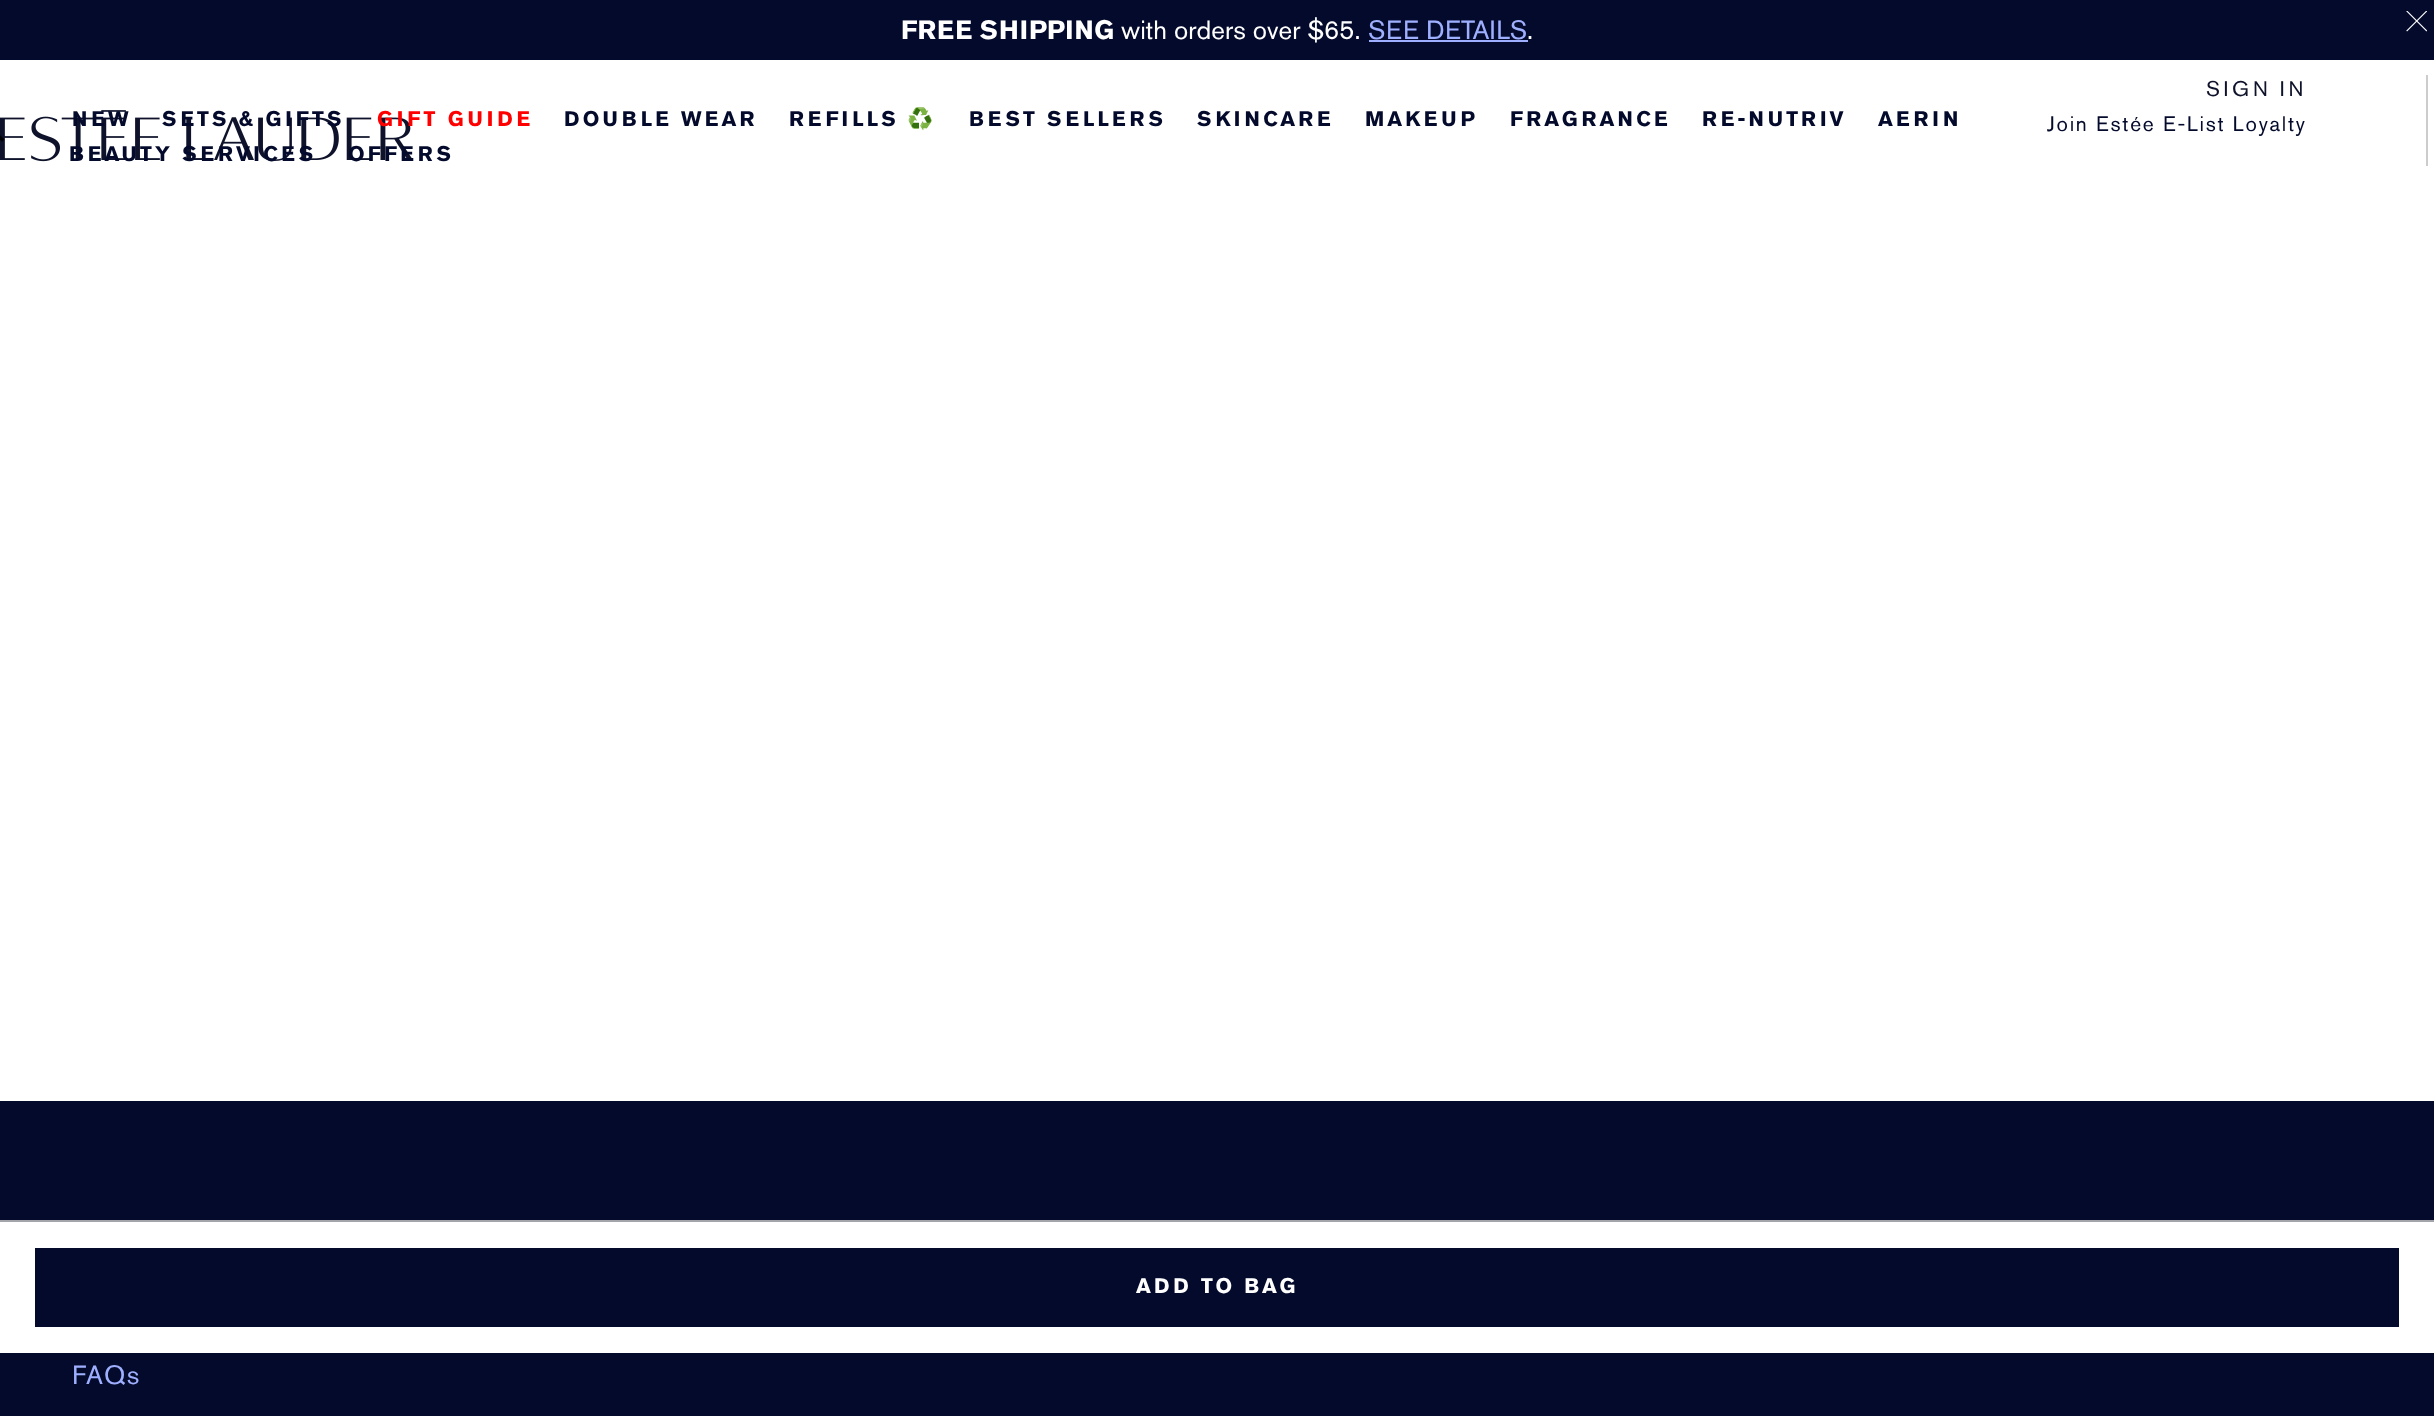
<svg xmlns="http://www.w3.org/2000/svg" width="2434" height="1416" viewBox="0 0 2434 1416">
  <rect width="100%" height="100%" fill="#040a2b"/>
  <path d="M0 60h2434v1041H0z" fill="#fff"/>
  <path d="M1369 40h159v2H1369z" fill="#9eafff"/>
  <image x="2406" y="11" width="21" height="21" href="img/1.png"/>
  <image x="0" y="110" width="413" height="52" href="img/2.png"/>
  <path d="M2426 75h2v91H2426z" fill="#ccc"/>
  <image x="0" y="135" width="5" height="7" href="img/3.png"/>
  <path d="M0 1220h2434v2H0z" fill="#a4a4ab"/>
  <path d="M35 1222h2364v26H35z" fill="#fff"/>
  <path d="M2399 1222h35v105H2399z" fill="#fff"/>
  <path d="M35 1327h2399v26H35z" fill="#fff"/>
  <path d="M0 1222h35v131H0z" fill="#fff"/>
  <text x="901" y="39" font-family="'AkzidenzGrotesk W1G'" font-size="26.25" font-weight="bold" fill="#fff">FREE SHIPPING</text>
  <text x="1121" y="39" font-family="'AkzidenzGrotesk W1G'" font-size="26.25" fill="#fff">with orders over $65.</text>
  <text x="1368" y="39" font-family="'AkzidenzGrotesk W1G'" font-size="26.25" fill="#9eafff">SEE DETAILS</text>
  <text x="1527" y="39" font-family="'AkzidenzGrotesk W1G'" font-size="26.25" fill="#fff">.</text>
  <g font-family="'AkzidenzGrotesk W1G'" font-size="21" font-weight="bold" letter-spacing="3.1" fill="#040a2b">
    <text x="72" y="126">NEW</text>
    <text x="162" y="126">SETS &amp; GIFTS</text>
  </g>
  <text x="377" y="126" font-family="'AkzidenzGrotesk W1G'" font-size="21" font-weight="bold" letter-spacing="3.1" fill="#f00">GIFT GUIDE</text>
  <g font-family="'AkzidenzGrotesk W1G'" font-size="21" font-weight="bold" letter-spacing="3.1" fill="#040a2b">
    <text x="564" y="126">DOUBLE WEAR</text>
    <text x="789" y="126">REFILLS</text>
  </g>
  <text x="907" y="126" font-family="Noto Color Emoji" font-size="21" font-weight="bold" letter-spacing="3.1" fill="#040a2b">♻️</text>
  <g font-family="'AkzidenzGrotesk W1G'" font-size="21" font-weight="bold" letter-spacing="3.1" fill="#040a2b">
    <text x="969" y="126">BEST SELLERS</text>
    <text x="1197" y="126">SKINCARE</text>
    <text x="1365" y="126">MAKEUP</text>
    <text x="1510" y="126">FRAGRANCE</text>
    <text x="1702" y="126">RE-NUTRIV</text>
    <text x="1878" y="126">AERIN</text>
    <text x="69" y="161">BEAUTY SERVICES</text>
    <text x="348" y="161">OFFERS</text>
  </g>
  <text x="2206" y="96" font-family="'AkzidenzGrotesk W1G'" font-size="21" letter-spacing="3.1" fill="#0e122a">SIGN IN</text>
  <text x="2047" y="131" font-family="'AkzidenzGrotesk W1G'" font-size="21" letter-spacing="1.75" fill="#040a2b">Join Estée E-List Loyalty</text>
  <text x="1136" y="1293" font-family="'AkzidenzGrotesk W1G'" font-size="21" font-weight="bold" letter-spacing="3.1" fill="#fff">ADD TO BAG</text>
  <text x="72" y="1384" font-family="'AkzidenzGrotesk W1G'" font-size="26.25" letter-spacing="1.5" fill="#9eafff">FAQs</text>
</svg>
